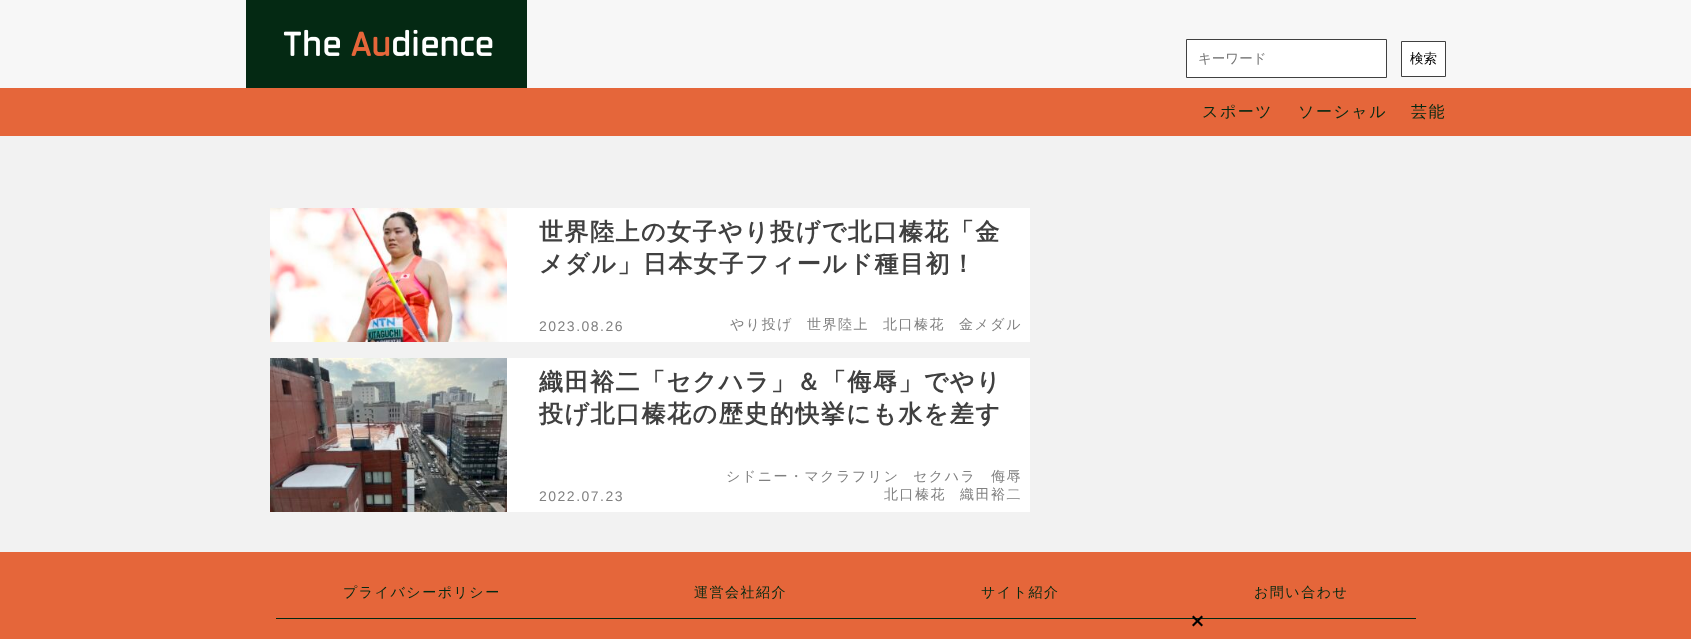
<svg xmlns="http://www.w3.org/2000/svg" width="1691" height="639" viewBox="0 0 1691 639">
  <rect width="100%" height="100%" fill="#f2f2f2"/>
  <path d="M0 0h1691v88H0z" fill="#f7f7f7"/>
  <image x="246" y="0" width="281" height="88" href="img/1.png"/>
  <path d="M1186.5 39.5h200v38H1186.5z" fill="#fff" stroke="#404040"/>
  <path d="M1401.5 41.5h44v35H1401.5z" fill="#fff" stroke="#404040"/>
  <path d="M507 208h523v134H507z" fill="#fff"/>
  <image x="270" y="208" width="237" height="134" href="img/2.png"/>
  <path d="M507 358h523v154H507z" fill="#fff"/>
  <image x="270" y="358" width="237" height="154" href="img/3.png"/>
  <path d="M0 88h1691v48H0z" fill="#e5663a"/>
  <path d="M0 552h1691v87H0z" fill="#e5663a"/>
  <path d="M276 618h1140v1H276z" fill="#032913"/>
  <path d="M1201.5 615.5L1203 617L1193.5 626.5L1192 625Z" fill="#000"/>
  <path d="M1192 617L1193.5 615.5L1203 625L1201.5 626.5Z" fill="#000"/>
  <text x="1198" y="63" font-family="WenQuanYi Zen Hei" font-size="13.5" font-weight="500" fill="#757575">キーワード</text>
  <text x="1410" y="63" font-family="WenQuanYi Zen Hei" font-size="13.5" font-weight="500" fill="#000">検索</text>
  <g font-family="WenQuanYi Zen Hei" font-size="24" font-weight="bold" letter-spacing="1.5" fill="#404040">
    <text x="539" y="240">世界陸上の女子やり投げで北口榛花「金</text>
    <text x="539" y="272">メダル」日本女子フィールド種目初！</text>
  </g>
  <text x="539" y="331" font-family="Liberation Sans" font-size="14" letter-spacing="1.5" fill="#808080">2023.08.26</text>
  <g font-family="WenQuanYi Zen Hei" font-size="14" font-weight="500" letter-spacing="1.5" fill="#808080">
    <text x="730" y="329">やり投げ</text>
    <text x="807" y="329">世界陸上</text>
    <text x="883" y="329">北口榛花</text>
    <text x="959" y="329">金メダル</text>
  </g>
  <g font-family="WenQuanYi Zen Hei" font-size="24" font-weight="bold" letter-spacing="1.5" fill="#404040">
    <text x="539" y="390">織田裕二「セクハラ」＆「侮辱」でやり</text>
    <text x="539" y="422">投げ北口榛花の歴史的快挙にも水を差す</text>
  </g>
  <text x="539" y="501" font-family="Liberation Sans" font-size="14" letter-spacing="1.5" fill="#808080">2022.07.23</text>
  <g font-family="WenQuanYi Zen Hei" font-size="14" font-weight="500" letter-spacing="1.5" fill="#808080">
    <text x="726" y="481">シドニー・マクラフリン</text>
    <text x="913" y="481">セクハラ</text>
    <text x="991" y="481">侮辱</text>
    <text x="884" y="499">北口榛花</text>
    <text x="960" y="499">織田裕二</text>
  </g>
  <g font-family="WenQuanYi Zen Hei" font-size="16" font-weight="500" letter-spacing="1.5" fill="#032913">
    <text x="1202" y="117">スポーツ</text>
    <text x="1298" y="117">ソーシャル</text>
    <text x="1411" y="117">芸能</text>
  </g>
  <g font-family="WenQuanYi Zen Hei" font-size="14" font-weight="500" letter-spacing="1.5" fill="#032913">
    <text x="343" y="597">プライバシーポリシー</text>
    <text x="694" y="597">運営会社紹介</text>
    <text x="981" y="597">サイト紹介</text>
    <text x="1254" y="597">お問い合わせ</text>
  </g>
</svg>
